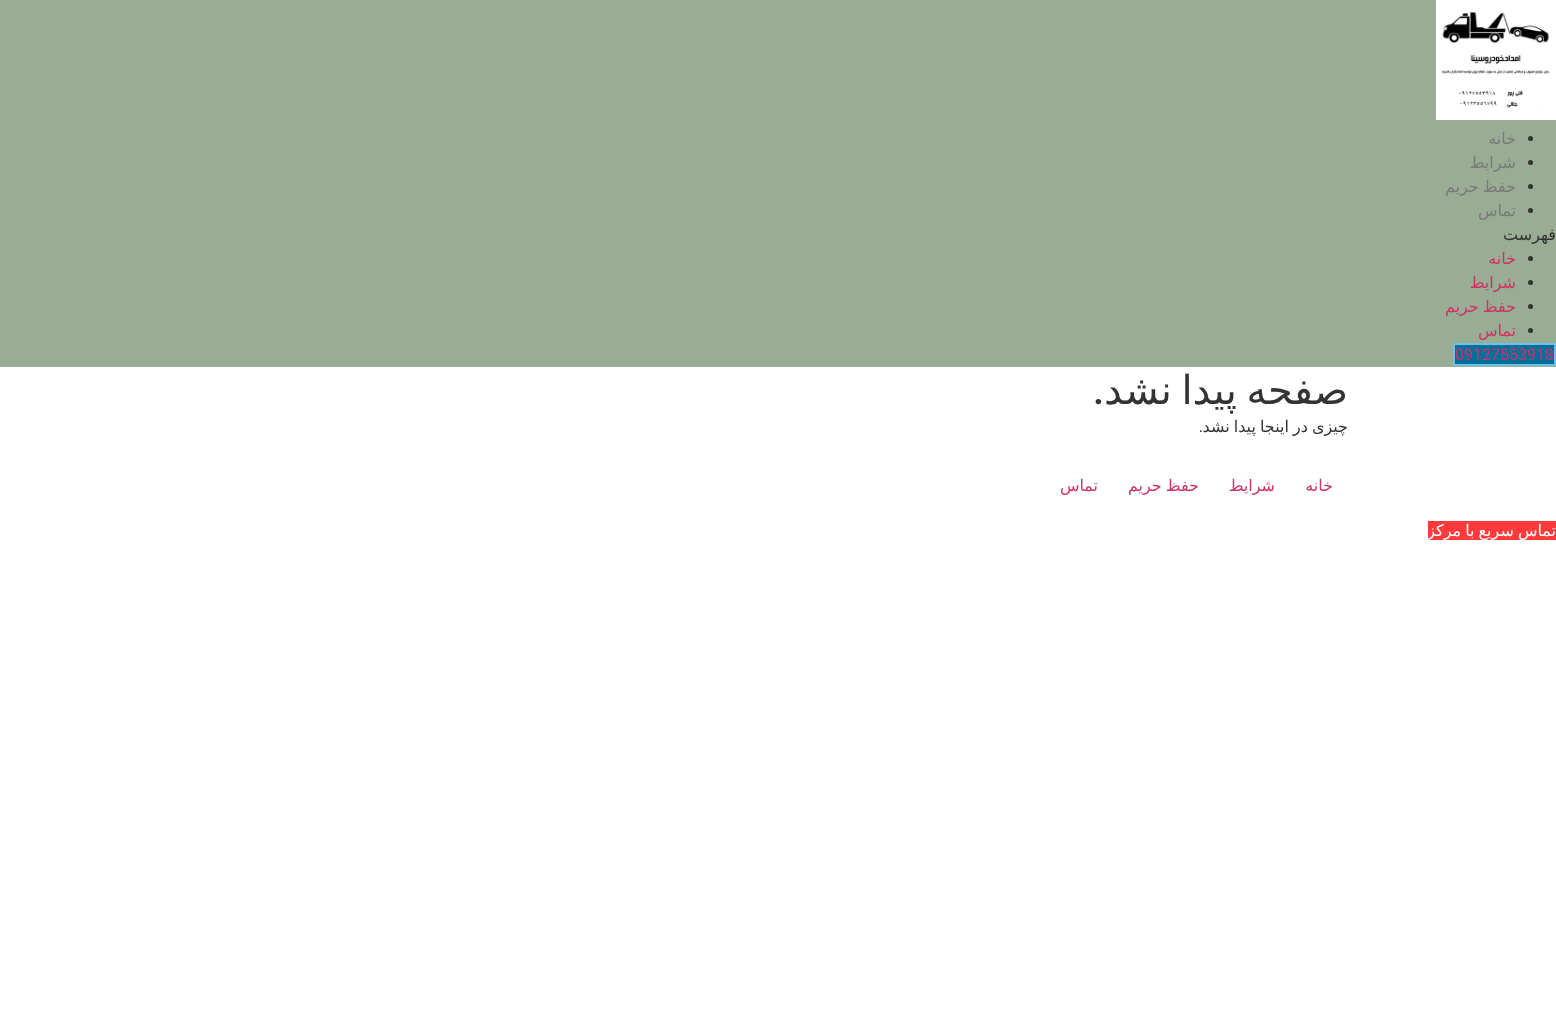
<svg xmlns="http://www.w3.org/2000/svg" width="1556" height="1028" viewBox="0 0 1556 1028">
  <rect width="100%" height="100%" fill="#fff"/>
  <path d="M0 0h1556v367H0z" fill="#99ac94"/>
  <image x="1436" y="0" width="120" height="120" href="img/1.png"/>
  <circle cx="1530.5" cy="138.5" r="2.5" fill="#333"/>
  <circle cx="1530.5" cy="162.5" r="2.5" fill="#333"/>
  <circle cx="1530.5" cy="186.5" r="2.5" fill="#333"/>
  <circle cx="1530.5" cy="210.5" r="2.5" fill="#333"/>
  <circle cx="1530.5" cy="258.5" r="2.5" fill="#333"/>
  <circle cx="1530.5" cy="282.5" r="2.5" fill="#333"/>
  <circle cx="1530.5" cy="306.5" r="2.5" fill="#333"/>
  <circle cx="1530.5" cy="330.5" r="2.5" fill="#333"/>
  <path d="M1454 344h101v21H1454z" fill="#016e9c" stroke="#6ec1e4" stroke-width="2"/>
  <path d="M1428 521h128v19H1428z" fill="#ff3a3a"/>
  <g font-family="DejaVu Sans" font-size="16" direction="rtl" fill="#7a7a7a">
    <text x="1516" y="144">خانه</text>
    <text x="1516" y="168">شرایط</text>
    <text x="1516" y="192" word-spacing="-1">حفظ حریم</text>
    <text x="1516" y="216">تماس</text>
  </g>
  <text x="1556" y="240" font-family="DejaVu Sans" font-size="16" direction="rtl" fill="#333">فهرست</text>
  <g font-family="DejaVu Sans" font-size="16" direction="rtl" fill="#c36">
    <text x="1516" y="264">خانه</text>
    <text x="1516" y="288">شرایط</text>
    <text x="1516" y="312" word-spacing="-1">حفظ حریم</text>
    <text x="1516" y="336">تماس</text>
  </g>
  <text x="1455" y="360" font-family="Roboto" font-size="16" fill="#c36">09127553918</text>
  <text x="1348" y="404" word-spacing="-3" font-family="DejaVu Sans" font-size="40" direction="rtl" fill="#333">صفحه پیدا نشد</text>
  <text x="1104" y="404" font-family="Roboto" font-size="40" font-weight="500" direction="rtl" fill="#333">.</text>
  <text x="1348" y="432" word-spacing="-1" font-family="DejaVu Sans" font-size="16" direction="rtl" fill="#333">چیزی در اینجا پیدا نشد</text>
  <text x="1203" y="432" font-family="Roboto" font-size="16" direction="rtl" fill="#333">.</text>
  <g font-family="DejaVu Sans" font-size="16" direction="rtl" fill="#c36">
    <text x="1333" y="491">خانه</text>
    <text x="1275" y="491">شرایط</text>
    <text x="1199" y="491" word-spacing="-1">حفظ حریم</text>
    <text x="1098" y="491">تماس</text>
  </g>
  <text x="1556" y="536" word-spacing="-1" font-family="DejaVu Sans" font-size="16" direction="rtl" fill="#fff">تماس سریع با مرکز</text>
</svg>
